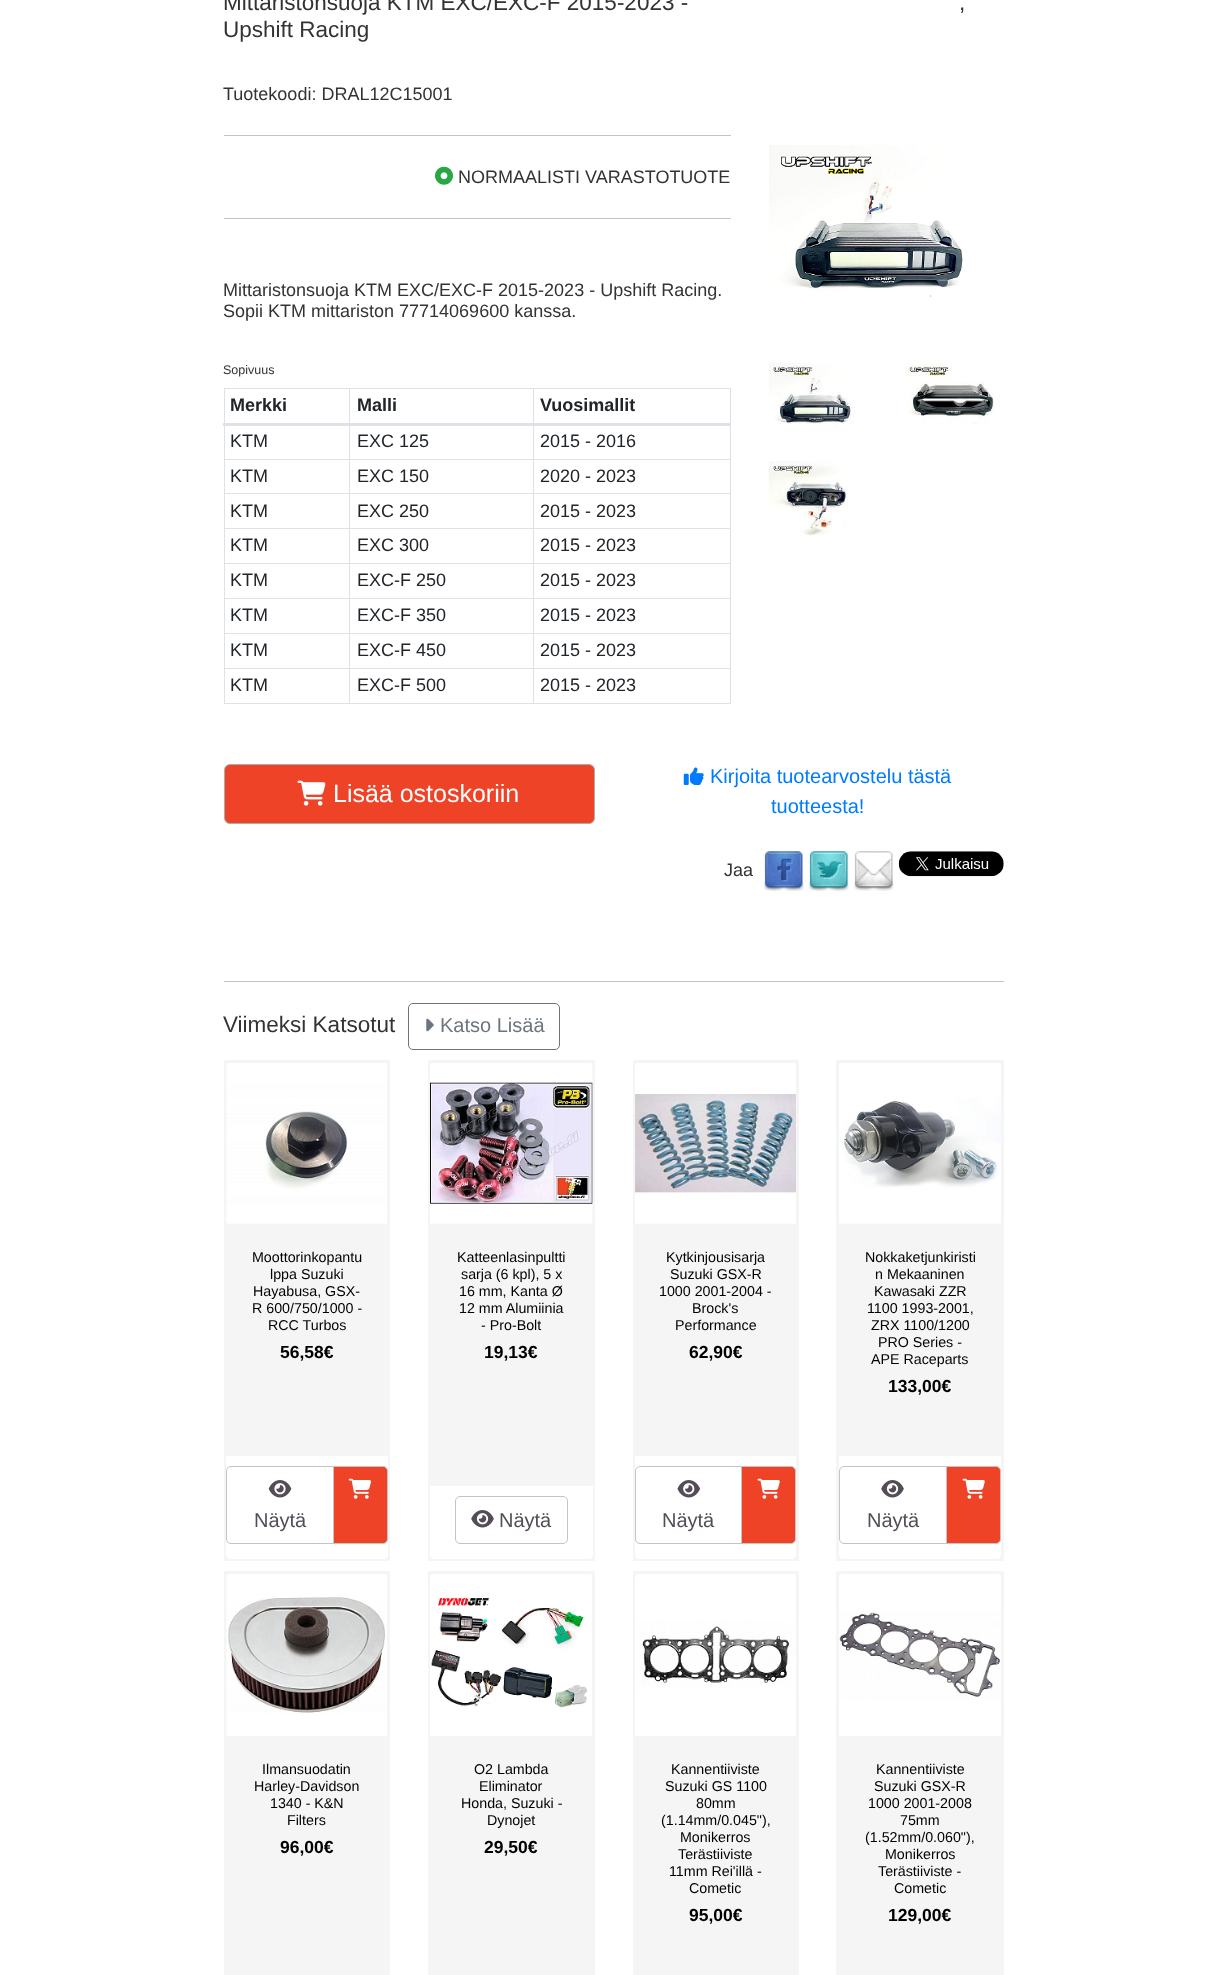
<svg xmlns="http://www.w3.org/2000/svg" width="1226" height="1975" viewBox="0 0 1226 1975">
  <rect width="100%" height="100%" fill="#fff"/>
  <path d="M224 135h507v1H224z" fill="#c4c4c4"/>
  <image x="435" y="166" width="18" height="19" href="img/1.png"/>
  <path d="M224 218h507v1H224z" fill="#c4c4c4"/>
  <path d="M224 388h507v1H224z" fill="#dee2e6"/>
  <path d="M730 388h1v316H730z" fill="#dee2e6"/>
  <path d="M224 703h507v1H224z" fill="#dee2e6"/>
  <path d="M224 388h1v316H224z" fill="#dee2e6"/>
  <path d="M533 459h198v1H533z" fill="#dee2e6"/>
  <path d="M533 493h198v1H533z" fill="#dee2e6"/>
  <path d="M533 528h198v1H533z" fill="#dee2e6"/>
  <path d="M533 563h198v1H533z" fill="#dee2e6"/>
  <path d="M533 598h198v1H533z" fill="#dee2e6"/>
  <path d="M533 633h198v1H533z" fill="#dee2e6"/>
  <path d="M533 668h198v1H533z" fill="#dee2e6"/>
  <path d="M533 668h1v36H533z" fill="#dee2e6"/>
  <path d="M349 668h185v1H349z" fill="#dee2e6"/>
  <path d="M533 633h1v36H533z" fill="#dee2e6"/>
  <path d="M349 633h185v1H349z" fill="#dee2e6"/>
  <path d="M533 598h1v36H533z" fill="#dee2e6"/>
  <path d="M349 598h185v1H349z" fill="#dee2e6"/>
  <path d="M533 563h1v36H533z" fill="#dee2e6"/>
  <path d="M349 563h185v1H349z" fill="#dee2e6"/>
  <path d="M533 528h1v36H533z" fill="#dee2e6"/>
  <path d="M349 528h185v1H349z" fill="#dee2e6"/>
  <path d="M533 493h1v36H533z" fill="#dee2e6"/>
  <path d="M349 493h185v1H349z" fill="#dee2e6"/>
  <path d="M533 459h1v35H533z" fill="#dee2e6"/>
  <path d="M349 459h185v1H349z" fill="#dee2e6"/>
  <path d="M349 668h1v36H349z" fill="#dee2e6"/>
  <path d="M224 668h126v1H224z" fill="#dee2e6"/>
  <path d="M349 633h1v36H349z" fill="#dee2e6"/>
  <path d="M224 633h126v1H224z" fill="#dee2e6"/>
  <path d="M349 598h1v36H349z" fill="#dee2e6"/>
  <path d="M224 598h126v1H224z" fill="#dee2e6"/>
  <path d="M349 563h1v36H349z" fill="#dee2e6"/>
  <path d="M224 563h126v1H224z" fill="#dee2e6"/>
  <path d="M349 528h1v36H349z" fill="#dee2e6"/>
  <path d="M224 528h126v1H224z" fill="#dee2e6"/>
  <path d="M349 493h1v36H349z" fill="#dee2e6"/>
  <path d="M224 493h126v1H224z" fill="#dee2e6"/>
  <path d="M349 459h1v35H349z" fill="#dee2e6"/>
  <path d="M224 459h126v1H224z" fill="#dee2e6"/>
  <path d="M349 388h1v72H349z" fill="#dee2e6"/>
  <path d="M533 388h1v72H533z" fill="#dee2e6"/>
  <path d="M223 423h508v3H223z" fill="#dee2e6"/>
  <image x="769" y="145" width="204" height="152" href="img/2.png"/>
  <image x="768" y="362" width="85" height="65" href="img/3.png"/>
  <image x="905" y="363" width="95" height="61" href="img/4.png"/>
  <image x="768" y="461" width="80" height="77" href="img/5.png"/>
  <rect x="224.5" y="764.5" width="370" height="59" rx="5.5" fill="#ee4326" stroke="#adacac"/>
  <image x="297" y="780" width="29" height="26" href="img/6.png"/>
  <image x="683" y="767" width="21" height="18" href="img/7.png"/>
  <image x="764" y="851" width="40" height="40" href="img/8.png"/>
  <image x="809" y="851" width="40" height="40" href="img/9.png"/>
  <image x="854" y="851" width="40" height="40" href="img/10.png"/>
  <image x="898" y="851" width="106" height="26" href="img/11.png"/>
  <path d="M224 981h780v1H224z" fill="#c4c4c4"/>
  <rect x="408.5" y="1003.5" width="151" height="46" rx="4.5" fill="none" stroke="#6c757d"/>
  <image x="426" y="1018" width="8" height="14" href="img/12.png"/>
  <path d="M224 1060h166v501H224z" fill="#f5f5f5"/>
  <image x="226" y="1063" width="161" height="161" href="img/13.png"/>
  <path d="M226 1456H388V1555C388 1557 386 1559 384 1559H230C228 1559 226 1557 226 1555Z" fill="#fff"/>
  <path d="M231 1466.5H333.5V1543.5H231C228.5 1543.5 226.5 1541.5 226.5 1539V1471C226.5 1468.5 228.5 1466.5 231 1466.5Z" fill="none" stroke="#c4c4c4"/>
  <image x="268" y="1480" width="24" height="18" href="img/14.png"/>
  <path d="M333.5 1466.5H383C385.5 1466.5 387.5 1468.5 387.5 1471V1539C387.5 1541.5 385.5 1543.5 383 1543.5H333.5Z" fill="#ee4326" stroke="#c4c4c4"/>
  <image x="348" y="1478" width="23" height="21" href="img/15.png"/>
  <path d="M428 1060h167v501H428z" fill="#f5f5f5"/>
  <image x="430" y="1063" width="163" height="161" href="img/16.png"/>
  <path d="M430 1486H593V1555C593 1557 591 1559 589 1559H434C432 1559 430 1557 430 1555Z" fill="#fff"/>
  <rect x="455.5" y="1496.5" width="112" height="47" rx="4.5" fill="none" stroke="#c4c4c4"/>
  <image x="471" y="1510" width="23" height="18" href="img/17.png"/>
  <path d="M633 1060h166v501H633z" fill="#f5f5f5"/>
  <image x="635" y="1063" width="161" height="161" href="img/18.png"/>
  <path d="M635 1456H796V1555C796 1557 794 1559 792 1559H639C637 1559 635 1557 635 1555Z" fill="#fff"/>
  <path d="M640 1466.5H742.5V1543.5H640C637.5 1543.5 635.5 1541.5 635.5 1539V1471C635.5 1468.5 637.5 1466.5 640 1466.5Z" fill="none" stroke="#c4c4c4"/>
  <image x="677" y="1480" width="23" height="18" href="img/19.png"/>
  <path d="M741.5 1466.5H791C793.5 1466.5 795.5 1468.5 795.5 1471V1539C795.5 1541.5 793.5 1543.5 791 1543.5H741.5Z" fill="#ee4326" stroke="#c4c4c4"/>
  <image x="757" y="1478" width="23" height="21" href="img/20.png"/>
  <path d="M836 1060h168v501H836z" fill="#f5f5f5"/>
  <image x="839" y="1063" width="162" height="161" href="img/21.png"/>
  <path d="M839 1456H1001V1555C1001 1557 999 1559 997 1559H843C841 1559 839 1557 839 1555Z" fill="#fff"/>
  <path d="M844 1466.5H947.5V1543.5H844C841.5 1543.5 839.5 1541.5 839.5 1539V1471C839.5 1468.5 841.5 1466.5 844 1466.5Z" fill="none" stroke="#c4c4c4"/>
  <image x="881" y="1480" width="23" height="18" href="img/17.png"/>
  <path d="M946.5 1466.5H996C998.5 1466.5 1000.5 1468.5 1000.5 1471V1539C1000.5 1541.5 998.5 1543.5 996 1543.5H946.5Z" fill="#ee4326" stroke="#c4c4c4"/>
  <image x="962" y="1478" width="23" height="21" href="img/20.png"/>
  <path d="M224 1571h166v404H224z" fill="#f5f5f5"/>
  <image x="226" y="1574" width="161" height="162" href="img/22.png"/>
  <path d="M428 1571h167v404H428z" fill="#f5f5f5"/>
  <image x="430" y="1574" width="162" height="162" href="img/23.png"/>
  <path d="M633 1571h166v404H633z" fill="#f5f5f5"/>
  <image x="635" y="1574" width="161" height="162" href="img/24.png"/>
  <path d="M836 1571h168v404H836z" fill="#f5f5f5"/>
  <image x="839" y="1574" width="162" height="162" href="img/25.png"/>
  <g font-family="Liberation Sans" font-size="22.5" fill="#333">
    <text x="223" y="10">Mittaristonsuoja KTM EXC/EXC-F 2015-2023 -</text>
    <text x="223" y="37">Upshift Racing</text>
    <text x="959" y="10">,</text>
  </g>
  <g font-family="Liberation Sans" font-size="18" fill="#333">
    <text x="223" y="100">Tuotekoodi: DRAL12C15001</text>
    <text x="458" y="183">NORMAALISTI VARASTOTUOTE</text>
    <text x="223" y="296">Mittaristonsuoja KTM EXC/EXC-F 2015-2023 - Upshift Racing.</text>
    <text x="223" y="317">Sopii KTM mittariston 77714069600 kanssa.</text>
  </g>
  <text x="223" y="374" font-family="Liberation Sans" font-size="12.5" fill="#333">Sopivuus</text>
  <g font-family="Liberation Sans" font-size="18" font-weight="bold" fill="#212529">
    <text x="230" y="411">Merkki</text>
    <text x="357" y="411">Malli</text>
    <text x="540" y="411">Vuosimallit</text>
  </g>
  <g font-family="Liberation Sans" font-size="18" fill="#212529">
    <text x="230" y="447">KTM</text>
    <text x="357" y="447">EXC 125</text>
    <text x="540" y="447">2015 - 2016</text>
    <text x="230" y="482">KTM</text>
    <text x="357" y="482">EXC 150</text>
    <text x="540" y="482">2020 - 2023</text>
    <text x="230" y="517">KTM</text>
    <text x="357" y="517">EXC 250</text>
    <text x="540" y="517">2015 - 2023</text>
    <text x="230" y="551">KTM</text>
    <text x="357" y="551">EXC 300</text>
    <text x="540" y="551">2015 - 2023</text>
    <text x="230" y="586">KTM</text>
    <text x="357" y="586">EXC-F 250</text>
    <text x="540" y="586">2015 - 2023</text>
    <text x="230" y="621">KTM</text>
    <text x="357" y="621">EXC-F 350</text>
    <text x="540" y="621">2015 - 2023</text>
    <text x="230" y="656">KTM</text>
    <text x="357" y="656">EXC-F 450</text>
    <text x="540" y="656">2015 - 2023</text>
    <text x="230" y="691">KTM</text>
    <text x="357" y="691">EXC-F 500</text>
    <text x="540" y="691">2015 - 2023</text>
  </g>
  <text x="333" y="802" font-family="Liberation Sans" font-size="25" fill="#fff">Lisää ostoskoriin</text>
  <g font-family="Liberation Sans" font-size="20" fill="#007bff">
    <text x="710" y="783">Kirjoita tuotearvostelu tästä</text>
    <text x="771" y="813">tuotteesta!</text>
  </g>
  <text x="724" y="876" font-family="Liberation Sans" font-size="18" fill="#333">Jaa</text>
  <text x="223" y="1032" font-family="Liberation Sans" font-size="22.5" fill="#333">Viimeksi Katsotut</text>
  <text x="440" y="1032" font-family="Liberation Sans" font-size="20" fill="#6c757d">Katso Lisää</text>
  <g font-family="Liberation Sans" font-size="14.25" fill="#000">
    <text x="252" y="1262">Moottorinkopantu</text>
    <text x="270" y="1279">lppa Suzuki</text>
    <text x="253" y="1296">Hayabusa, GSX-</text>
    <text x="252" y="1313">R 600/750/1000 -</text>
    <text x="268" y="1330">RCC Turbos</text>
  </g>
  <text x="280" y="1358" font-family="Liberation Sans" font-size="17.5" font-weight="bold" fill="#000">56,58€</text>
  <text x="254" y="1527" font-family="Liberation Sans" font-size="20" fill="#544d57">Näytä</text>
  <g font-family="Liberation Sans" font-size="14.25" fill="#000">
    <text x="457" y="1262">Katteenlasinpultti</text>
    <text x="461" y="1279">sarja (6 kpl), 5 x</text>
    <text x="459" y="1296">16 mm, Kanta Ø</text>
    <text x="459" y="1313">12 mm Alumiinia</text>
    <text x="481" y="1330">- Pro-Bolt</text>
  </g>
  <text x="484" y="1358" font-family="Liberation Sans" font-size="17.5" font-weight="bold" fill="#000">19,13€</text>
  <text x="499" y="1527" font-family="Liberation Sans" font-size="20" fill="#544d57">Näytä</text>
  <g font-family="Liberation Sans" font-size="14.25" fill="#000">
    <text x="666" y="1262">Kytkinjousisarja</text>
    <text x="670" y="1279">Suzuki GSX-R</text>
    <text x="659" y="1296">1000 2001-2004 -</text>
    <text x="692" y="1313">Brock's</text>
    <text x="675" y="1330">Performance</text>
  </g>
  <text x="689" y="1358" font-family="Liberation Sans" font-size="17.5" font-weight="bold" fill="#000">62,90€</text>
  <text x="662" y="1527" font-family="Liberation Sans" font-size="20" fill="#544d57">Näytä</text>
  <g font-family="Liberation Sans" font-size="14.25" fill="#000">
    <text x="865" y="1262">Nokkaketjunkiristi</text>
    <text x="875" y="1279">n Mekaaninen</text>
    <text x="874" y="1296">Kawasaki ZZR</text>
    <text x="867" y="1313">1100 1993-2001,</text>
    <text x="871" y="1330">ZRX 1100/1200</text>
    <text x="878" y="1347">PRO Series -</text>
    <text x="871" y="1364">APE Raceparts</text>
  </g>
  <text x="888" y="1392" font-family="Liberation Sans" font-size="17.5" font-weight="bold" fill="#000">133,00€</text>
  <text x="867" y="1527" font-family="Liberation Sans" font-size="20" fill="#544d57">Näytä</text>
  <g font-family="Liberation Sans" font-size="14.25" fill="#000">
    <text x="262" y="1774">Ilmansuodatin</text>
    <text x="254" y="1791">Harley-Davidson</text>
    <text x="270" y="1808">1340 - K&amp;N</text>
    <text x="287" y="1825">Filters</text>
  </g>
  <text x="280" y="1853" font-family="Liberation Sans" font-size="17.5" font-weight="bold" fill="#000">96,00€</text>
  <g font-family="Liberation Sans" font-size="14.25" fill="#000">
    <text x="474" y="1774">O2 Lambda</text>
    <text x="479" y="1791">Eliminator</text>
    <text x="461" y="1808">Honda, Suzuki -</text>
    <text x="487" y="1825">Dynojet</text>
  </g>
  <text x="484" y="1853" font-family="Liberation Sans" font-size="17.5" font-weight="bold" fill="#000">29,50€</text>
  <g font-family="Liberation Sans" font-size="14.25" fill="#000">
    <text x="671" y="1774">Kannentiiviste</text>
    <text x="665" y="1791">Suzuki GS 1100</text>
    <text x="696" y="1808">80mm</text>
    <text x="661" y="1825">(1.14mm/0.045"),</text>
    <text x="680" y="1842">Monikerros</text>
    <text x="678" y="1859">Terästiiviste</text>
    <text x="669" y="1876">11mm Rei'illä -</text>
    <text x="689" y="1893">Cometic</text>
  </g>
  <text x="689" y="1921" font-family="Liberation Sans" font-size="17.5" font-weight="bold" fill="#000">95,00€</text>
  <g font-family="Liberation Sans" font-size="14.25" fill="#000">
    <text x="876" y="1774">Kannentiiviste</text>
    <text x="874" y="1791">Suzuki GSX-R</text>
    <text x="868" y="1808">1000 2001-2008</text>
    <text x="900" y="1825">75mm</text>
    <text x="865" y="1842">(1.52mm/0.060"),</text>
    <text x="885" y="1859">Monikerros</text>
    <text x="878" y="1876">Terästiiviste -</text>
    <text x="894" y="1893">Cometic</text>
  </g>
  <text x="888" y="1921" font-family="Liberation Sans" font-size="17.5" font-weight="bold" fill="#000">129,00€</text>
</svg>
